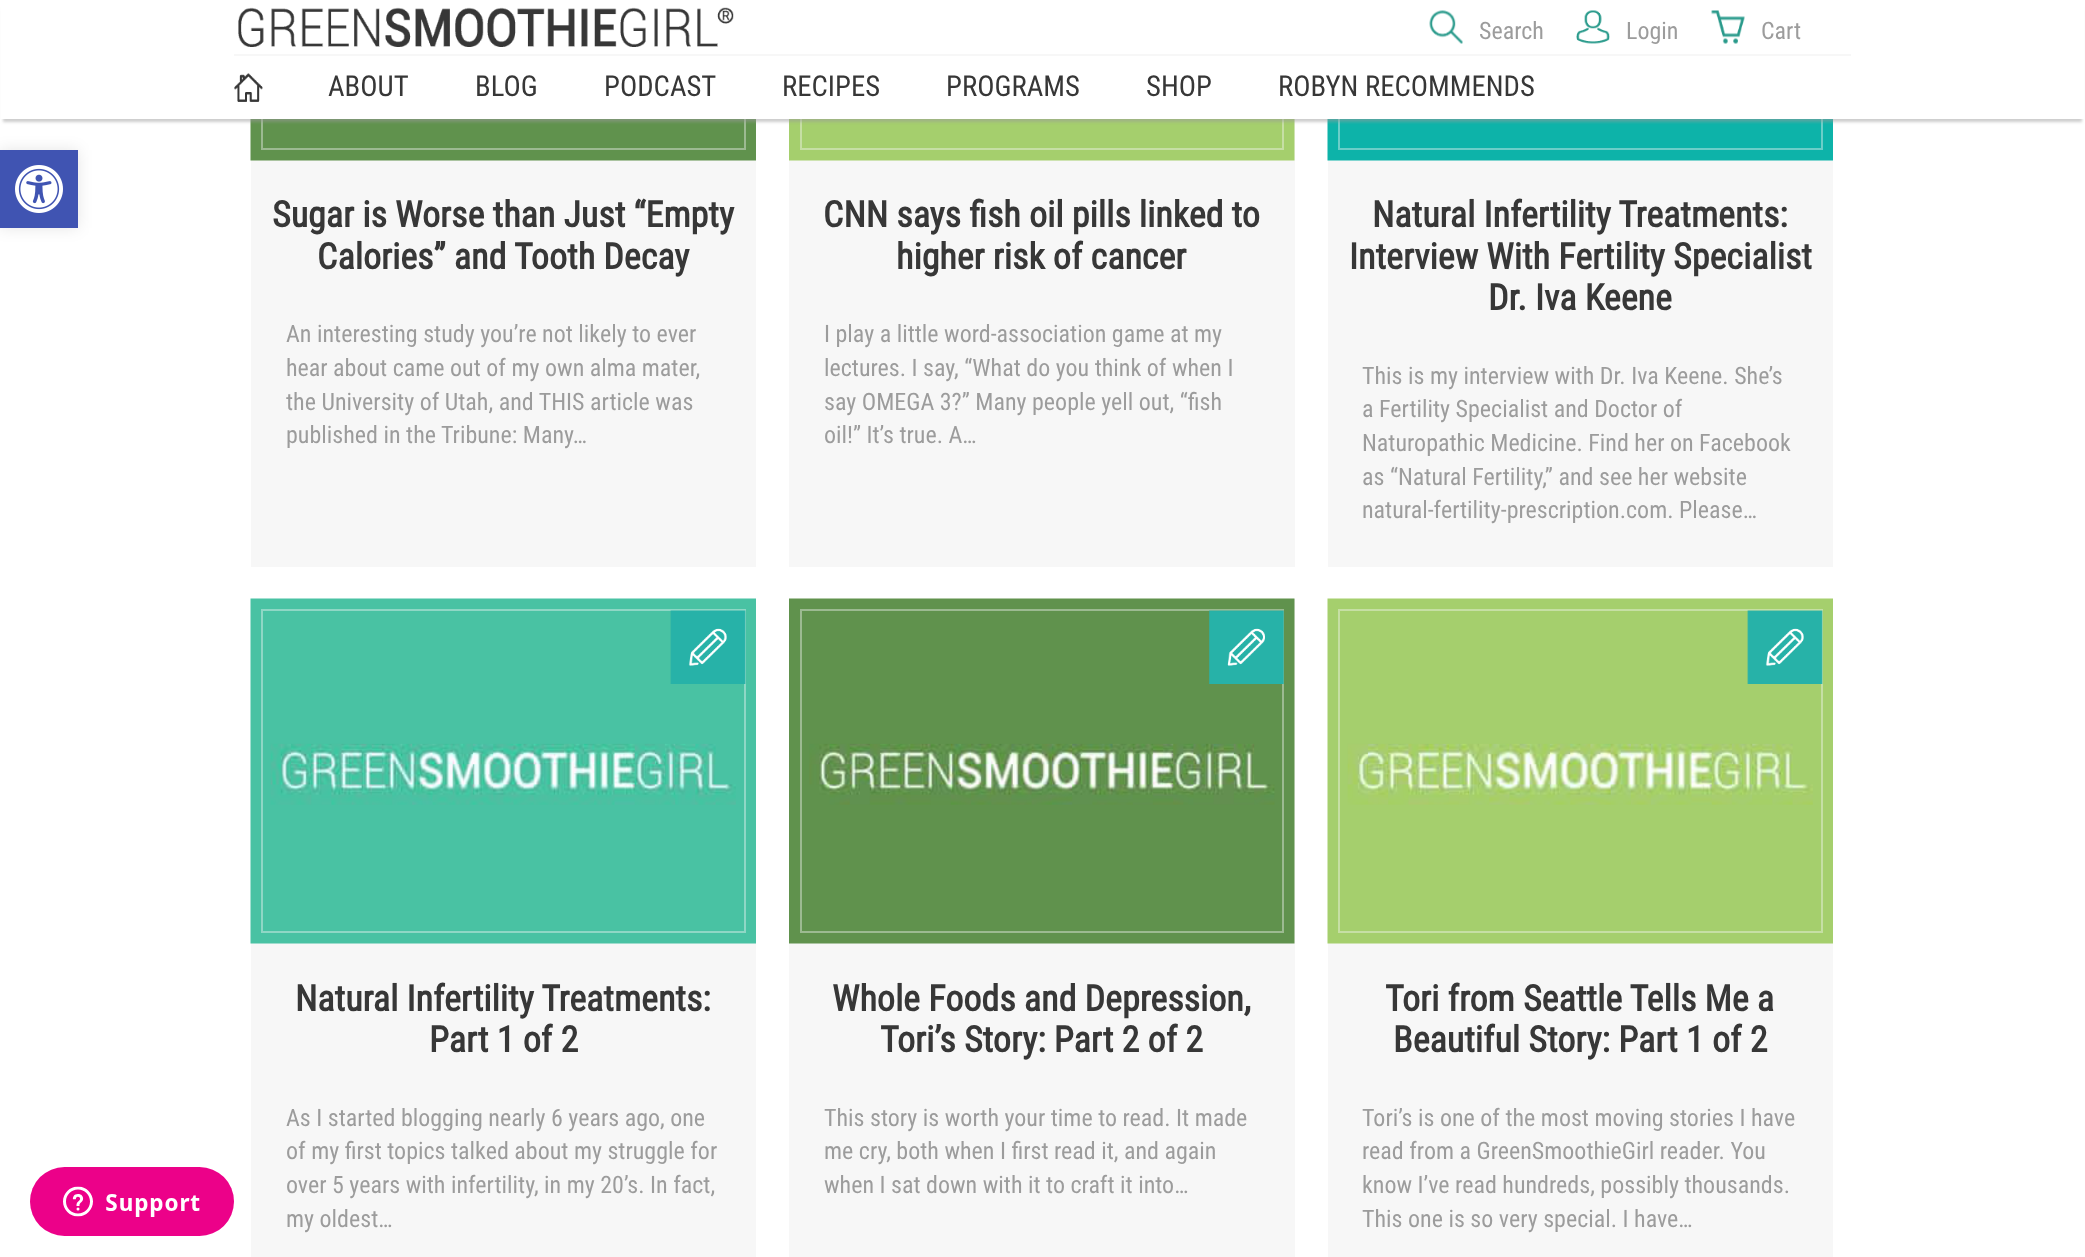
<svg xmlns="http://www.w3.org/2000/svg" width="2085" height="1257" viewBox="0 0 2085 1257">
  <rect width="100%" height="100%" fill="#fff"/>
  <path d="M251 160h505v407H251z" fill="#f7f7f7"/>
  <image x="250" y="119" width="506" height="42" href="img/7.png"/>
  <path d="M262 -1h483v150H262z" fill="none" stroke="#9cba91" stroke-width="2"/>
  <path d="M789 119h506v448H789z" fill="#f7f7f7"/>
  <image x="789" y="119" width="506" height="42" href="img/8.png"/>
  <path d="M801 -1h482v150H801z" fill="none" stroke="#c6dfa4" stroke-width="2"/>
  <path d="M1328 160h505v407H1328z" fill="#f7f7f7"/>
  <image x="1327" y="119" width="506" height="42" href="img/9.png"/>
  <path d="M1339 -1h483v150H1339z" fill="none" stroke="#6bcec8" stroke-width="2"/>
  <path d="M3 9h2079v113H3z" fill="#9c9c9c80" filter="blur(1.5px)"/>
  <path d="M1 0h2083v119H1z" fill="#fff"/>
  <image x="238" y="7" width="496" height="40" href="img/1.png"/>
  <image x="1429" y="10" width="34" height="34" href="img/2.png"/>
  <image x="1576" y="10" width="34" height="34" href="img/3.png"/>
  <image x="1711" y="10" width="34" height="34" href="img/4.png"/>
  <path d="M234 54h1617v2H234z" fill="#f7f7f7"/>
  <image x="234" y="73" width="29" height="29" href="img/5.png"/>
  <path d="M0 150h78v78H0z" fill="#0000001a" filter="blur(7.5px)"/>
  <path d="M0 150h78v78H0z" fill="#4054b2"/>
  <image x="15" y="165" width="48" height="48" href="img/6.png"/>
  <path d="M251 943h505v314H251z" fill="#f7f7f7"/>
  <image x="250" y="598" width="506" height="346" href="img/10.png"/>
  <path d="M262 610h483v322H262z" fill="none" stroke="#8fd7c5" stroke-width="2"/>
  <image x="670" y="610" width="76" height="74" href="img/11.png"/>
  <path d="M789 599h506v658H789z" fill="#f7f7f7"/>
  <image x="789" y="598" width="506" height="346" href="img/12.png"/>
  <path d="M801 610h482v322H801z" fill="none" stroke="#9cba91" stroke-width="2"/>
  <image x="1209" y="610" width="75" height="74" href="img/13.png"/>
  <path d="M1328 943h505v314H1328z" fill="#f7f7f7"/>
  <image x="1327" y="598" width="506" height="346" href="img/14.png"/>
  <path d="M1339 610h483v322H1339z" fill="none" stroke="#c6dfa4" stroke-width="2"/>
  <image x="1747" y="610" width="76" height="74" href="img/15.png"/>
  <image x="30" y="1167" width="204" height="69" href="img/16.png"/>
  <g font-family="Roboto Condensed" font-size="24" fill="#9c9c9c">
    <text x="1479" y="39">Search</text>
    <text x="1626" y="39">Login</text>
    <text x="1761" y="39">Cart</text>
  </g>
  <g font-family="Roboto Condensed" font-size="28.75" fill="#373737">
    <text x="328" y="96">ABOUT</text>
    <text x="475" y="96">BLOG</text>
    <text x="604" y="96">PODCAST</text>
    <text x="782" y="96">RECIPES</text>
    <text x="946" y="96">PROGRAMS</text>
    <text x="1146" y="96">SHOP</text>
    <text x="1278" y="96">ROBYN RECOMMENDS</text>
  </g>
  <g font-family="Roboto Condensed" font-size="36" font-weight="bold" fill="#373737">
    <text x="272" y="227">Sugar is Worse than Just “Empty</text>
    <text x="317" y="269">Calories” and Tooth Decay</text>
  </g>
  <g font-family="Roboto Condensed" font-size="24" fill="#9c9c9c">
    <text x="286" y="342">An interesting study you’re not likely to ever</text>
    <text x="286" y="376">hear about came out of my own alma mater,</text>
    <text x="286" y="410">the University of Utah, and THIS article was</text>
    <text x="286" y="443">published in the Tribune: Many…</text>
  </g>
  <g font-family="Roboto Condensed" font-size="36" font-weight="bold" fill="#373737">
    <text x="823" y="227">CNN says fish oil pills linked to</text>
    <text x="896" y="269">higher risk of cancer</text>
  </g>
  <g font-family="Roboto Condensed" font-size="24" fill="#9c9c9c">
    <text x="824" y="342">I play a little word-association game at my</text>
    <text x="824" y="376">lectures. I say, “What do you think of when I</text>
    <text x="824" y="410">say OMEGA 3?” Many people yell out, “fish</text>
    <text x="824" y="443">oil!” It’s true. A…</text>
  </g>
  <g font-family="Roboto Condensed" font-size="36" font-weight="bold" fill="#373737">
    <text x="1372" y="227">Natural Infertility Treatments:</text>
    <text x="1349" y="269">Interview With Fertility Specialist</text>
    <text x="1488" y="310">Dr. Iva Keene</text>
  </g>
  <g font-family="Roboto Condensed" font-size="24" fill="#9c9c9c">
    <text x="1362" y="384">This is my interview with Dr. Iva Keene. She’s</text>
    <text x="1362" y="417">a Fertility Specialist and Doctor of</text>
    <text x="1362" y="451">Naturopathic Medicine. Find her on Facebook</text>
    <text x="1362" y="485">as “Natural Fertility,” and see her website</text>
    <text x="1362" y="518">natural-fertility-prescription.com. Please…</text>
  </g>
  <g font-family="Roboto Condensed" font-size="36" font-weight="bold" fill="#373737">
    <text x="295" y="1011">Natural Infertility Treatments:</text>
    <text x="429" y="1052">Part 1 of 2</text>
  </g>
  <g font-family="Roboto Condensed" font-size="24" fill="#9c9c9c">
    <text x="286" y="1126">As I started blogging nearly 6 years ago, one</text>
    <text x="286" y="1159">of my first topics talked about my struggle for</text>
    <text x="286" y="1193">over 5 years with infertility, in my 20’s. In fact,</text>
    <text x="286" y="1227">my oldest…</text>
  </g>
  <g font-family="Roboto Condensed" font-size="36" font-weight="bold" fill="#373737">
    <text x="832" y="1011">Whole Foods and Depression,</text>
    <text x="880" y="1052">Tori’s Story: Part 2 of 2</text>
  </g>
  <g font-family="Roboto Condensed" font-size="24" fill="#9c9c9c">
    <text x="824" y="1126">This story is worth your time to read. It made</text>
    <text x="824" y="1159">me cry, both when I first read it, and again</text>
    <text x="824" y="1193">when I sat down with it to craft it into…</text>
  </g>
  <g font-family="Roboto Condensed" font-size="36" font-weight="bold" fill="#373737">
    <text x="1385" y="1011">Tori from Seattle Tells Me a</text>
    <text x="1393" y="1052">Beautiful Story: Part 1 of 2</text>
  </g>
  <g font-family="Roboto Condensed" font-size="24" fill="#9c9c9c">
    <text x="1362" y="1126">Tori’s is one of the most moving stories I have</text>
    <text x="1362" y="1159">read from a GreenSmoothieGirl reader. You</text>
    <text x="1362" y="1193">know I’ve read hundreds, possibly thousands.</text>
    <text x="1362" y="1227">This one is so very special. I have…</text>
  </g>
</svg>
